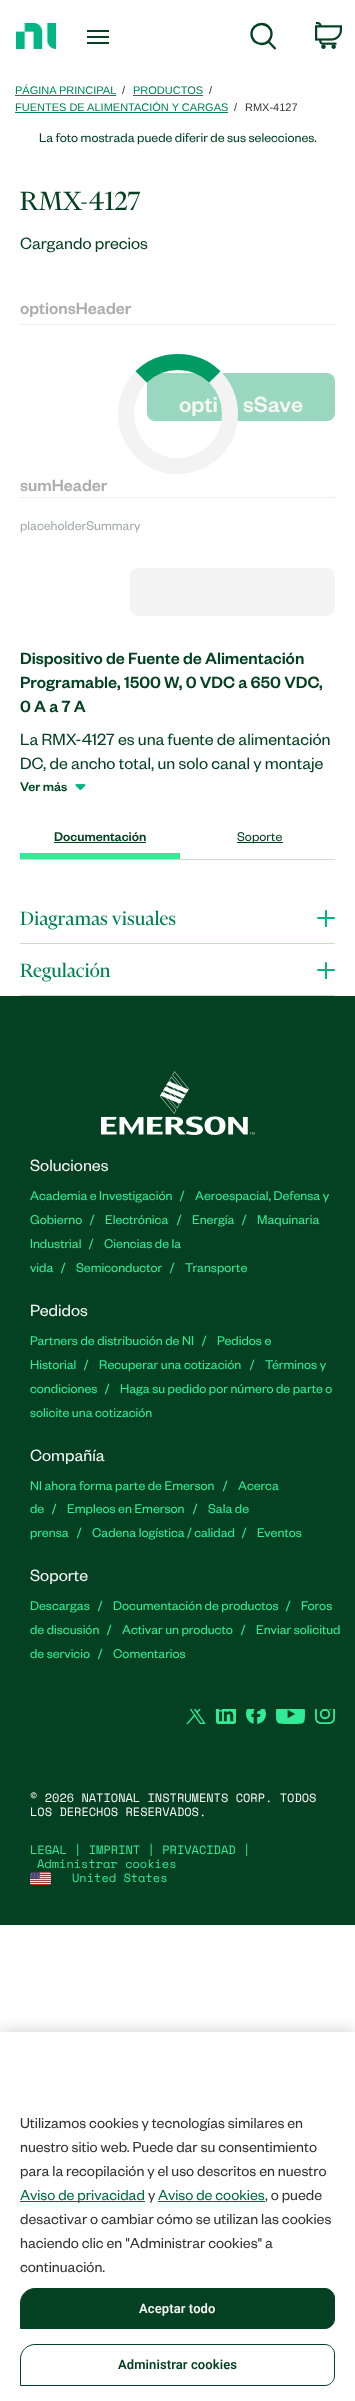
<svg xmlns="http://www.w3.org/2000/svg" width="355" height="2401" viewBox="0 0 355 2401">
  <defs>
    <clipPath id="clip1"><path d="M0 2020h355v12H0z"/></clipPath>
  </defs>
  <rect width="100%" height="100%" fill="#fff"/>
  <image x="16" y="23" width="40" height="26" href="img/1.png"/>
  <path d="M87 30h22v2H87z" fill="#044123"/>
  <path d="M87 36h22v2H87z" fill="#044123"/>
  <path d="M87 42h22v2H87z" fill="#044123"/>
  <circle cx="261.5" cy="34" r="10" fill="none" stroke="#044123" stroke-width="2.3"/>
  <path d="M268.5 41.5L275.5 49" fill="none" stroke="#044123" stroke-width="2.3"/>
  <image x="315" y="22" width="27" height="27" href="img/2.png"/>
  <path d="M15 95h101v1H15z" fill="#008053"/>
  <path d="M133 95h70v1H133z" fill="#008053"/>
  <path d="M15 112h213v1H15z" fill="#008053"/>
  <path d="M20 324h315v1H20z" fill="#ebf1e9"/>
  <rect x="147" y="373" width="188" height="48" rx="8" fill="#99d7c1"/>
  <path d="M20 497h315v1H20z" fill="#ebf1e9"/>
  <rect x="130" y="568" width="205" height="48" rx="8" fill="#f4f4f4"/>
  <path d="M141 377C161.5 357 194.5 357 215 377" fill="none" stroke="#009b65" stroke-width="16"/>
  <image x="75" y="784" width="11" height="6" href="img/3.png"/>
  <path d="M20 859h315v1H20z" fill="#ccdcc8"/>
  <path d="M54 842h92v1H54z" fill="#044123"/>
  <path d="M20 853h160v6H20z" fill="#32eb96"/>
  <path d="M237 842h46v1H237z" fill="#044123"/>
  <path d="M20 943h315v1H20z" fill="#ccdcc8"/>
  <rect x="317" y="917" width="18" height="2" rx="1" fill="#03b585"/>
  <path d="M326 910C326.5 910 327 910.5 327 911V927H325V911C325 910.5 325.5 910 326 910Z" fill="#03b585"/>
  <path d="M20 995h315v1H20z" fill="#ccdcc8"/>
  <rect x="317" y="969" width="18" height="2" rx="1" fill="#03b585"/>
  <path d="M326 962C326.5 962 327 962.5 327 963V979H325V963C325 962.5 325.5 962 326 962Z" fill="#03b585"/>
  <path d="M0 996h355v929H0z" fill="#044123"/>
  <image x="101" y="1071" width="154" height="64" href="img/4.png"/>
  <image x="186" y="1709" width="20" height="15" href="img/5.png"/>
  <image x="216" y="1709" width="20" height="15" href="img/6.png"/>
  <image x="246" y="1709" width="20" height="15" href="img/7.png"/>
  <image x="276" y="1709" width="29" height="15" href="img/8.png"/>
  <image x="315" y="1709" width="20" height="15" href="img/9.png"/>
  <image x="30" y="1872" width="21" height="13" href="img/10.png"/>
  <g clip-path="url(#clip1)">
    <path d="M0 2032h355v369H0z" fill="#00000033" filter="blur(9px)"/>
  </g>
  <path d="M20 2201h125v1H20z" fill="#006b46"/>
  <path d="M158 2201h107v1H158z" fill="#006b46"/>
  <path d="M35 2288.5H325C330 2288.5 334.5 2293 334.5 2298V2319C334.5 2324 330 2328.5 325 2328.5H20.5V2303C20.5 2295 27 2288.5 35 2288.5Z" fill="#044123" stroke="#044123"/>
  <path d="M35 2344.5H325C330 2344.5 334.5 2349 334.5 2354V2376C334.5 2381 330 2385.5 325 2385.5H20.5V2359C20.5 2351 27 2344.5 35 2344.5Z" fill="none" stroke="#044123"/>
  <text x="15" y="94" font-family="Liberation Sans" font-size="11" fill="#008053">PÁGINA PRINCIPAL</text>
  <text x="122" y="94" font-family="Liberation Sans" font-size="11" fill="#333">/</text>
  <text x="133" y="94" font-family="Liberation Sans" font-size="11" fill="#008053">PRODUCTOS</text>
  <text x="209" y="94" font-family="Liberation Sans" font-size="11" fill="#333">/</text>
  <text x="15" y="111" font-family="Liberation Sans" font-size="11" fill="#008053">FUENTES DE ALIMENTACIÓN Y CARGAS</text>
  <g font-family="Liberation Sans" font-size="11" fill="#333">
    <text x="234" y="111">/</text>
    <text x="245" y="111">RMX-4127</text>
  </g>
  <text x="39" y="142" font-family="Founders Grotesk" font-size="14" fill="#044123">La foto mostrada puede diferir de sus selecciones.</text>
  <text x="20" y="210" font-family="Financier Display" font-size="30" fill="#044123">RMX-4127</text>
  <text x="20" y="249" font-family="Founders Grotesk" font-size="18" fill="#044123">Cargando precios</text>
  <text x="20" y="314" font-family="Founders Grotesk" font-size="18" font-weight="500" fill="#adadad">optionsHeader</text>
  <g font-family="Founders Grotesk" font-size="24" font-weight="500" fill="#f6f6f6">
    <text x="179" y="412">opti</text>
    <text x="243" y="412">sSave</text>
  </g>
  <text x="20" y="491" font-family="Founders Grotesk" font-size="18" font-weight="500" fill="#adadad">sumHeader</text>
  <text x="20" y="530" font-family="Founders Grotesk" font-size="14" fill="#a6a8a9">placeholderSummary</text>
  <path d="M215 377C224.5 387 230 400.5 230 414C230 460 173.5 483.5 141 451C134 443.5 129 434 127 424C123.5 407.5 129 389.5 141 377" fill="none" stroke="#f3f3f3" stroke-width="16"/>
  <g font-family="Founders Grotesk" font-size="18" font-weight="500" fill="#044123">
    <text x="20" y="664">Dispositivo de Fuente de Alimentación</text>
    <text x="20" y="688">Programable, 1500 W, 0 VDC a 650 VDC,</text>
    <text x="20" y="712">0 A a 7 A</text>
  </g>
  <g font-family="Founders Grotesk" font-size="18" fill="#044123">
    <text x="20" y="745">La RMX-4127 es una fuente de alimentación</text>
    <text x="20" y="769">DC, de ancho total, un solo canal y montaje</text>
  </g>
  <text x="20" y="791" font-family="Founders Grotesk" font-size="14" font-weight="500" fill="#044a27">Ver más</text>
  <text x="54" y="841" font-family="Founders Grotesk" font-size="14" font-weight="500" fill="#044123">Documentación</text>
  <text x="237" y="841" font-family="Founders Grotesk" font-size="14" fill="#044123">Soporte</text>
  <g font-family="Financier Display" font-size="22" fill="#008053">
    <text x="20" y="925">Diagramas visuales</text>
    <text x="20" y="977">Regulación</text>
  </g>
  <text x="30" y="1171" font-family="Founders Grotesk" font-size="18" fill="#f6f6f6">Soluciones</text>
  <g font-family="Founders Grotesk" font-size="14" fill="#32eb96">
    <text x="30" y="1200">Academia e Investigación</text>
    <text x="180" y="1200">/</text>
    <text x="195" y="1200">Aeroespacial, Defensa y</text>
    <text x="30" y="1224">Gobierno</text>
    <text x="90" y="1224">/</text>
    <text x="105" y="1224">Electrónica</text>
    <text x="177" y="1224">/</text>
    <text x="192" y="1224">Energía</text>
    <text x="242" y="1224">/</text>
    <text x="257" y="1224">Maquinaria</text>
    <text x="30" y="1248">Industrial</text>
    <text x="89" y="1248">/</text>
    <text x="104" y="1248">Ciencias de la</text>
    <text x="30" y="1272">vida</text>
    <text x="61" y="1272">/</text>
    <text x="76" y="1272">Semiconductor</text>
    <text x="170" y="1272">/</text>
    <text x="185" y="1272">Transporte</text>
  </g>
  <text x="30" y="1316" font-family="Founders Grotesk" font-size="18" fill="#f6f6f6">Pedidos</text>
  <g font-family="Founders Grotesk" font-size="14" fill="#32eb96">
    <text x="30" y="1345">Partners de distribución de NI</text>
    <text x="202" y="1345">/</text>
    <text x="217" y="1345">Pedidos e</text>
    <text x="30" y="1369">Historial</text>
    <text x="84" y="1369">/</text>
    <text x="99" y="1369">Recuperar una cotización</text>
    <text x="250" y="1369">/</text>
    <text x="265" y="1369">Términos y</text>
    <text x="30" y="1393">condiciones</text>
    <text x="105" y="1393">/</text>
    <text x="120" y="1393">Haga su pedido por número de parte o</text>
    <text x="30" y="1417">solicite una cotización</text>
  </g>
  <text x="30" y="1461" font-family="Founders Grotesk" font-size="18" fill="#f6f6f6">Compañía</text>
  <g font-family="Founders Grotesk" font-size="14" fill="#32eb96">
    <text x="30" y="1490">NI ahora forma parte de Emerson</text>
    <text x="223" y="1490">/</text>
    <text x="238" y="1490">Acerca</text>
    <text x="30" y="1513">de</text>
    <text x="52" y="1513">/</text>
    <text x="67" y="1513">Empleos en Emerson</text>
    <text x="193" y="1513">/</text>
    <text x="208" y="1513">Sala de</text>
    <text x="30" y="1537">prensa</text>
    <text x="77" y="1537">/</text>
    <text x="92" y="1537">Cadena logística / calidad</text>
    <text x="242" y="1537">/</text>
    <text x="257" y="1537">Eventos</text>
  </g>
  <text x="30" y="1581" font-family="Founders Grotesk" font-size="18" fill="#f6f6f6">Soporte</text>
  <g font-family="Founders Grotesk" font-size="14" fill="#32eb96">
    <text x="30" y="1610">Descargas</text>
    <text x="98" y="1610">/</text>
    <text x="113" y="1610">Documentación de productos</text>
    <text x="286" y="1610">/</text>
    <text x="301" y="1610">Foros</text>
    <text x="30" y="1634">de discusión</text>
    <text x="107" y="1634">/</text>
    <text x="122" y="1634">Activar un producto</text>
    <text x="241" y="1634">/</text>
    <text x="256" y="1634">Enviar solicitud</text>
    <text x="30" y="1658">de servicio</text>
    <text x="98" y="1658">/</text>
    <text x="113" y="1658">Comentarios</text>
  </g>
  <g font-family="Space Mono" font-size="12" fill="#f6f6f6">
    <text x="30" y="1802">© 2026 NATIONAL INSTRUMENTS CORP. TODOS</text>
    <text x="30" y="1816">LOS DERECHOS RESERVADOS.</text>
  </g>
  <g font-family="Space Mono" font-size="12" fill="#32eb96">
    <text x="30" y="1854">LEGAL | IMPRINT | PRIVACIDAD |</text>
    <text x="37" y="1868">Administrar cookies</text>
    <text x="72" y="1882">United States</text>
  </g>
  <g font-family="Founders Grotesk" font-size="16" fill="#333">
    <text x="20" y="2128">Utilizamos cookies y tecnologías similares en</text>
    <text x="20" y="2152">nuestro sitio web. Puede dar su consentimiento</text>
    <text x="20" y="2176">para la recopilación y el uso descritos en nuestro</text>
  </g>
  <text x="20" y="2200" font-family="Founders Grotesk" font-size="16" fill="#006b46">Aviso de privacidad</text>
  <text x="148" y="2200" font-family="Founders Grotesk" font-size="16" fill="#333">y</text>
  <text x="158" y="2200" font-family="Founders Grotesk" font-size="16" fill="#006b46">Aviso de cookies</text>
  <g font-family="Founders Grotesk" font-size="16" fill="#333">
    <text x="265" y="2200">, o puede</text>
    <text x="20" y="2224">desactivar o cambiar cómo se utilizan las cookies</text>
    <text x="20" y="2248">haciendo clic en "Administrar cookies" a</text>
    <text x="20" y="2272">continuación.</text>
  </g>
  <text x="139" y="2313" font-family="Roboto" font-size="13" font-weight="600" letter-spacing="0.1" fill="#f6f6f6">Aceptar todo</text>
  <text x="118" y="2369" font-family="Roboto" font-size="13" font-weight="600" letter-spacing="0.1" fill="#044123">Administrar cookies</text>
</svg>
